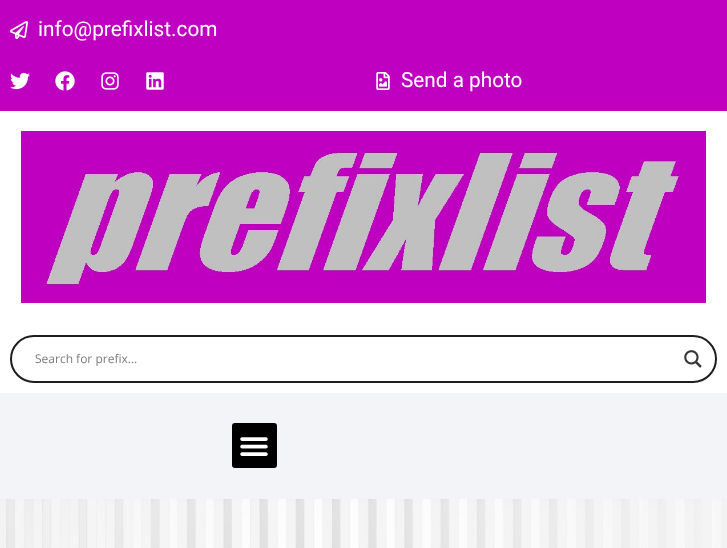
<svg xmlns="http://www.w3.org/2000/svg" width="727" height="548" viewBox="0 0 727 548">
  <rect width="100%" height="100%" fill="#fff"/>
  <image x="0" y="499" width="727" height="49" href="img/1.png"/>
  <path d="M0 0h727v111H0z" fill="#bf00c0"/>
  <image x="10" y="21" width="18" height="18" href="img/2.png"/>
  <image x="10" y="72" width="20" height="18" href="img/3.png"/>
  <image x="55" y="71" width="20" height="20" href="img/4.png"/>
  <image x="101" y="72" width="18" height="18" href="img/5.png"/>
  <image x="146" y="72" width="18" height="18" href="img/6.png"/>
  <image x="376" y="72" width="14" height="18" href="img/7.png"/>
  <image x="21" y="131" width="685" height="172" href="img/8.png"/>
  <rect x="11" y="336" width="705" height="46" rx="23" fill="none" stroke="#1e1e1e" stroke-width="2"/>
  <image x="684" y="350" width="18" height="18" href="img/9.png"/>
  <path d="M0 393h727v106H0z" fill="#f3f4f8"/>
  <rect x="232" y="423" width="45" height="45" rx="3" fill="#000"/>
  <image x="240" y="437" width="28" height="19" href="img/10.png"/>
  <g font-family="Roboto" font-size="20.75" fill="#fff">
    <text x="38" y="36">info@prefixlist.com</text>
    <text x="401" y="87">Send a photo</text>
  </g>
  <text x="35" y="363" font-family="Open Sans" font-size="12" fill="#7d7d7d">Search for prefix...</text>
</svg>
